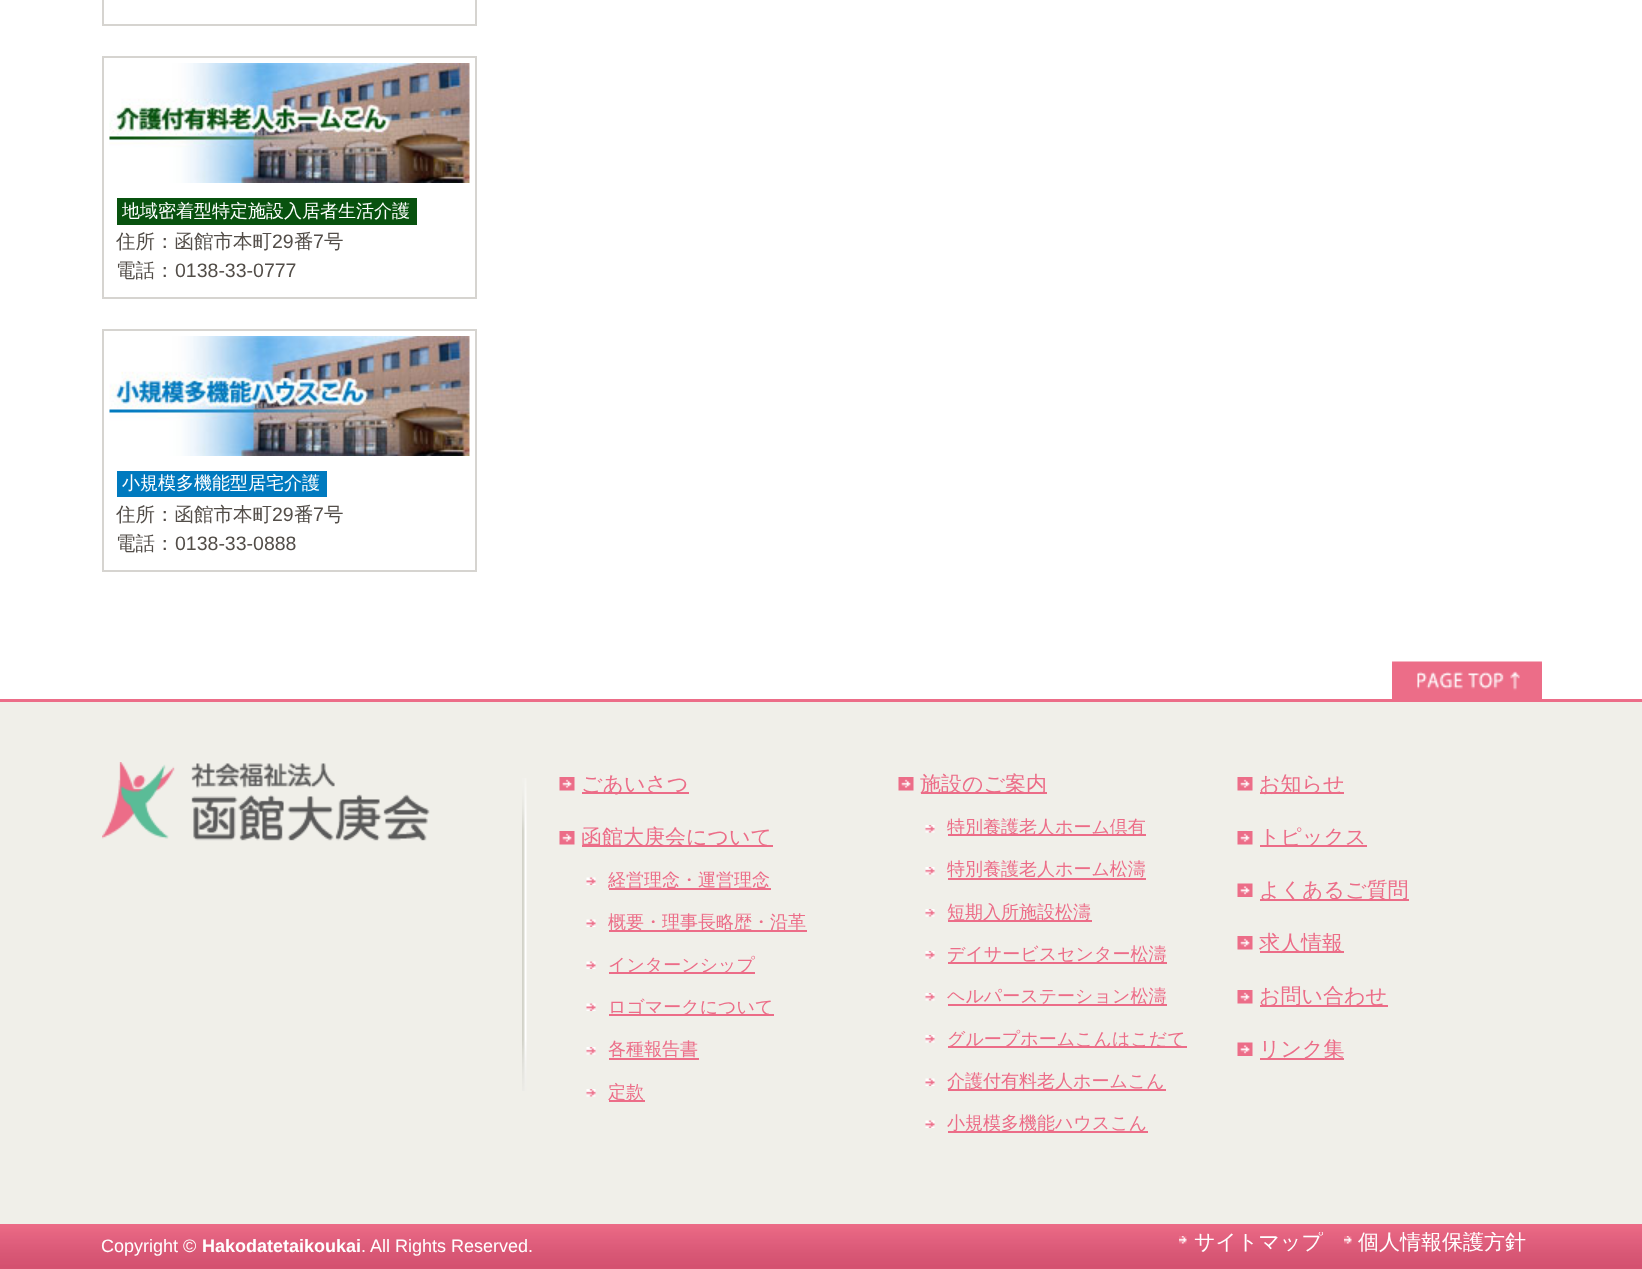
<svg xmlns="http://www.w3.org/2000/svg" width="1642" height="1269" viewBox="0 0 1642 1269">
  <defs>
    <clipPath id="clip1"><path d="M102 1232h1440v30H102z"/></clipPath>
  </defs>
  <rect width="100%" height="100%" fill="#fff"/>
  <path d="M103 -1h373v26H103z" fill="none" stroke="#d6d4d0" stroke-width="2"/>
  <path d="M103 57h373v241H103z" fill="none" stroke="#d6d4d0" stroke-width="2"/>
  <image x="109" y="63" width="361" height="120" href="img/1.png"/>
  <path d="M117 198h300v27H117z" fill="#08520f"/>
  <path d="M103 330h373v241H103z" fill="none" stroke="#d6d4d0" stroke-width="2"/>
  <image x="109" y="336" width="361" height="120" href="img/2.png"/>
  <path d="M117 471h210v26H117z" fill="#007abf"/>
  <image x="1392" y="661" width="150" height="38" href="img/3.png"/>
  <path d="M0 702h1642v522H0z" fill="#f0efe9"/>
  <path d="M0 699h1642v3H0z" fill="#ec6d88"/>
  <image x="102" y="762" width="328" height="79" href="img/4.png"/>
  <image x="522" y="778" width="5" height="313" href="img/5.png"/>
  <image x="559" y="777" width="16" height="14" href="img/6.png"/>
  <path d="M582 792h107v2H582z" fill="#ec6d88"/>
  <image x="559" y="831" width="16" height="14" href="img/6.png"/>
  <path d="M582 845h191v2H582z" fill="#ec6d88"/>
  <image x="586" y="877" width="10" height="8" href="img/7.png"/>
  <path d="M609 888h162v2H609z" fill="#ec6d88"/>
  <image x="586" y="919" width="10" height="8" href="img/7.png"/>
  <path d="M609 930h198v2H609z" fill="#ec6d88"/>
  <image x="586" y="961" width="10" height="8" href="img/7.png"/>
  <path d="M609 972h146v2H609z" fill="#ec6d88"/>
  <image x="586" y="1003" width="10" height="8" href="img/7.png"/>
  <path d="M609 1014h165v2H609z" fill="#ec6d88"/>
  <image x="586" y="1047" width="10" height="8" href="img/8.png"/>
  <path d="M609 1058h90v2H609z" fill="#ec6d88"/>
  <image x="586" y="1089" width="10" height="8" href="img/8.png"/>
  <path d="M609 1100h36v2H609z" fill="#ec6d88"/>
  <image x="898" y="777" width="16" height="14" href="img/9.png"/>
  <path d="M921 792h126v2H921z" fill="#ec6d88"/>
  <image x="925" y="825" width="10" height="8" href="img/8.png"/>
  <path d="M948 834h198v2H948z" fill="#ec6d88"/>
  <image x="925" y="867" width="10" height="8" href="img/8.png"/>
  <path d="M948 878h198v2H948z" fill="#ec6d88"/>
  <image x="925" y="909" width="10" height="8" href="img/8.png"/>
  <path d="M948 920h144v2H948z" fill="#ec6d88"/>
  <image x="925" y="951" width="10" height="8" href="img/8.png"/>
  <path d="M948 962h219v2H948z" fill="#ec6d88"/>
  <image x="925" y="993" width="10" height="8" href="img/8.png"/>
  <path d="M948 1004h219v2H948z" fill="#ec6d88"/>
  <image x="925" y="1035" width="10" height="8" href="img/8.png"/>
  <path d="M948 1046h239v2H948z" fill="#ec6d88"/>
  <image x="925" y="1078" width="10" height="8" href="img/7.png"/>
  <path d="M948 1089h218v2H948z" fill="#ec6d88"/>
  <image x="925" y="1120" width="10" height="8" href="img/7.png"/>
  <path d="M948 1131h200v2H948z" fill="#ec6d88"/>
  <image x="1237" y="777" width="16" height="14" href="img/9.png"/>
  <path d="M1260 792h84v2H1260z" fill="#ec6d88"/>
  <image x="1237" y="831" width="16" height="14" href="img/9.png"/>
  <path d="M1260 845h107v2H1260z" fill="#ec6d88"/>
  <image x="1237" y="883" width="16" height="14" href="img/10.png"/>
  <path d="M1260 899h149v2H1260z" fill="#ec6d88"/>
  <image x="1237" y="936" width="16" height="14" href="img/9.png"/>
  <path d="M1260 951h84v2H1260z" fill="#ec6d88"/>
  <image x="1237" y="990" width="16" height="14" href="img/9.png"/>
  <path d="M1260 1005h128v2H1260z" fill="#ec6d88"/>
  <image x="1237" y="1042" width="16" height="14" href="img/10.png"/>
  <path d="M1260 1058h84v2H1260z" fill="#ec6d88"/>
  <image x="0" y="1224" width="1642" height="45" href="img/11.png"/>
  <image x="1179" y="1236" width="8" height="8" href="img/12.png"/>
  <image x="1344" y="1236" width="8" height="8" href="img/12.png"/>
  <text x="122" y="217" font-family="WenQuanYi Zen Hei" font-size="18" font-weight="500" fill="#fff">地域密着型特定施設入居者生活介護</text>
  <text x="116" y="248" font-family="WenQuanYi Zen Hei" font-size="19.5" font-weight="500" fill="#524d48">住所：函館市本町</text>
  <text x="272" y="248" font-family="Liberation Sans" font-size="19.5" fill="#524d48">29</text>
  <text x="294" y="248" font-family="WenQuanYi Zen Hei" font-size="19.5" font-weight="500" fill="#524d48">番</text>
  <text x="313" y="248" font-family="Liberation Sans" font-size="19.5" fill="#524d48">7</text>
  <g font-family="WenQuanYi Zen Hei" font-size="19.5" font-weight="500" fill="#524d48">
    <text x="324" y="248">号</text>
    <text x="116" y="277">電話：</text>
  </g>
  <text x="175" y="277" font-family="Liberation Sans" font-size="19.5" fill="#524d48">0138-33-0777</text>
  <text x="122" y="489" font-family="WenQuanYi Zen Hei" font-size="18" font-weight="500" fill="#fff">小規模多機能型居宅介護</text>
  <text x="116" y="521" font-family="WenQuanYi Zen Hei" font-size="19.5" font-weight="500" fill="#524d48">住所：函館市本町</text>
  <text x="272" y="521" font-family="Liberation Sans" font-size="19.5" fill="#524d48">29</text>
  <text x="294" y="521" font-family="WenQuanYi Zen Hei" font-size="19.5" font-weight="500" fill="#524d48">番</text>
  <text x="313" y="521" font-family="Liberation Sans" font-size="19.5" fill="#524d48">7</text>
  <g font-family="WenQuanYi Zen Hei" font-size="19.5" font-weight="500" fill="#524d48">
    <text x="324" y="521">号</text>
    <text x="116" y="550">電話：</text>
  </g>
  <text x="175" y="550" font-family="Liberation Sans" font-size="19.5" fill="#524d48">0138-33-0888</text>
  <g font-family="WenQuanYi Zen Hei" font-size="21" font-weight="500" fill="#ec6d88">
    <text x="581" y="791">ごあいさつ</text>
    <text x="581" y="844">函館大庚会について</text>
  </g>
  <g font-family="WenQuanYi Zen Hei" font-size="18" font-weight="500" fill="#ec6d88">
    <text x="608" y="886">経営理念・運営理念</text>
    <text x="608" y="928">概要・理事長略歴・沿革</text>
    <text x="608" y="971">インターンシップ</text>
    <text x="608" y="1013">ロゴマークについて</text>
    <text x="608" y="1055">各種報告書</text>
    <text x="608" y="1098">定款</text>
  </g>
  <text x="920" y="791" font-family="WenQuanYi Zen Hei" font-size="21" font-weight="500" fill="#ec6d88">施設のご案内</text>
  <g font-family="WenQuanYi Zen Hei" font-size="18" font-weight="500" fill="#ec6d88">
    <text x="947" y="833">特別養護老人ホーム倶有</text>
    <text x="947" y="875">特別養護老人ホーム松濤</text>
    <text x="947" y="918">短期入所施設松濤</text>
    <text x="947" y="960">デイサービスセンター松濤</text>
    <text x="947" y="1002">ヘルパーステーション松濤</text>
    <text x="947" y="1045">グループホームこんはこだて</text>
    <text x="947" y="1087">介護付有料老人ホームこん</text>
    <text x="947" y="1129">小規模多機能ハウスこん</text>
  </g>
  <g font-family="WenQuanYi Zen Hei" font-size="21" font-weight="500" fill="#ec6d88">
    <text x="1259" y="791">お知らせ</text>
    <text x="1259" y="844">トピックス</text>
    <text x="1259" y="897">よくあるご質問</text>
    <text x="1259" y="950">求人情報</text>
    <text x="1259" y="1003">お問い合わせ</text>
    <text x="1259" y="1056">リンク集</text>
  </g>
  <text x="101" y="1252" font-family="Liberation Sans" font-size="18" fill="#fff">Copyright ©</text>
  <text x="202" y="1252" font-family="Liberation Sans" font-size="18" font-weight="bold" fill="#fff">Hakodatetaikoukai</text>
  <text x="361" y="1252" font-family="Liberation Sans" font-size="18" fill="#fff">. All Rights Reserved.</text>
  <g clip-path="url(#clip1)">
    <g font-family="WenQuanYi Zen Hei" font-size="21" font-weight="500" fill="#fff">
      <text x="1194" y="1249">サイトマップ</text>
      <text x="1358" y="1249">個人情報保護方針</text>
    </g>
  </g>
</svg>
